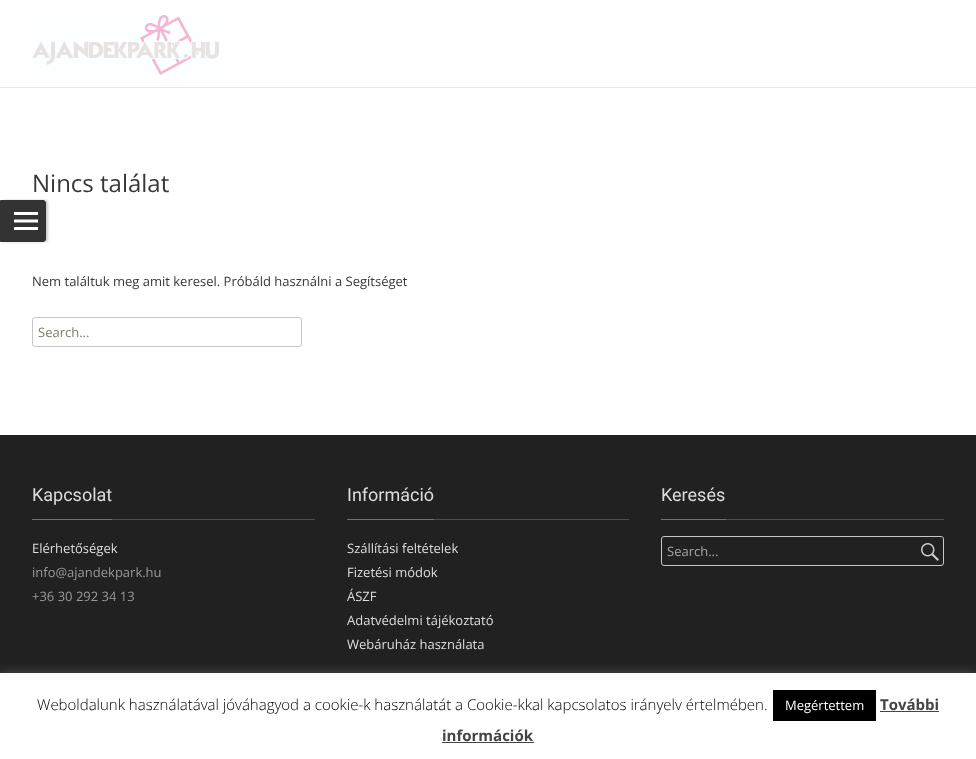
<svg xmlns="http://www.w3.org/2000/svg" width="976" height="759" viewBox="0 0 976 759">
  <rect width="100%" height="100%" fill="#fff"/>
  <rect x="2" y="200" width="46" height="42" rx="3" fill="#00000033" filter="blur(1px)"/>
  <path d="M.5 200.5H43C44.5 200.5 45.5 201.5 45.5 203V239C45.5 240.5 44.5 241.5 43 241.5H.5Z" fill="#333" stroke="#333"/>
  <image x="14" y="212" width="24" height="18" href="img/1.png"/>
  <path d="M0 87h976v1H0z" fill="#e7e7e7"/>
  <image x="32" y="15" width="187" height="60" href="img/2.png"/>
  <rect x="32.5" y="317.5" width="269" height="29" rx="2.5" fill="none" stroke="#c7c7c7"/>
  <path d="M0 435h976v238H0z" fill="#212121"/>
  <path d="M112 519h203v1H112z" fill="#4d4d4d"/>
  <path d="M32 519h80v1H32z" fill="#717171"/>
  <path d="M434 519h195v1H434z" fill="#4d4d4d"/>
  <path d="M347 519h87v1H347z" fill="#717171"/>
  <path d="M726 519h218v1H726z" fill="#4d4d4d"/>
  <path d="M661 519h65v1H661z" fill="#717171"/>
  <rect x="661.5" y="536.5" width="282" height="29" rx="2.5" fill="none" stroke="#c7c7c7"/>
  <image x="921" y="543" width="18" height="18" href="img/3.png"/>
  <path d="M0 672h976v86H0z" fill="#acabab4d" filter="blur(5px)"/>
  <path d="M0 673h976v86H0z" fill="#fff"/>
  <path d="M773 690h103v31H773z" fill="#000"/>
  <path d="M880 711h59v1H880z" fill="#444"/>
  <path d="M442 742h92v1H442z" fill="#444"/>
  <text x="32" y="192" font-family="Open Sans" font-size="24" fill="#373737">Nincs találat</text>
  <text x="32" y="286" font-family="Open Sans" font-size="13" fill="#373737">Nem találtuk meg amit keresel. Próbáld használni a Segítséget</text>
  <text x="38" y="337" font-family="Open Sans" font-size="13" fill="#7d7b6d">Search...</text>
  <text x="32" y="501" font-family="Roboto" font-size="18" fill="#ddd">Kapcsolat</text>
  <text x="32" y="553" font-family="Open Sans" font-size="13" fill="#ddd">Elérhetőségek</text>
  <g font-family="Open Sans" font-size="13" fill="#999">
    <text x="32" y="577">info@ajandekpark.hu</text>
    <text x="32" y="601">+36 30 292 34 13</text>
  </g>
  <text x="347" y="501" font-family="Roboto" font-size="18" fill="#ddd">Információ</text>
  <g font-family="Open Sans" font-size="13" fill="#ddd">
    <text x="347" y="553">Szállítási feltételek</text>
    <text x="347" y="577">Fizetési módok</text>
    <text x="347" y="601">ÁSZF</text>
    <text x="347" y="625">Adatvédelmi tájékoztató</text>
    <text x="347" y="649">Webáruház használata</text>
  </g>
  <text x="661" y="501" font-family="Roboto" font-size="18" fill="#ddd">Keresés</text>
  <text x="667" y="556" font-family="Open Sans" font-size="13" fill="#a7a7a7">Search...</text>
  <text x="37" y="710" font-family="Open Sans" font-size="15" font-weight="300" fill="#000">Weboldalunk használatával jóváhagyod a cookie-k használatát a Cookie-kkal kapcsolatos irányelv értelmében.</text>
  <text x="785" y="710" font-family="Open Sans" font-size="13" fill="#fff">Megértettem</text>
  <g font-family="Open Sans" font-size="15" font-weight="bold" fill="#444">
    <text x="880" y="710">További</text>
    <text x="442" y="741">információk</text>
  </g>
</svg>
